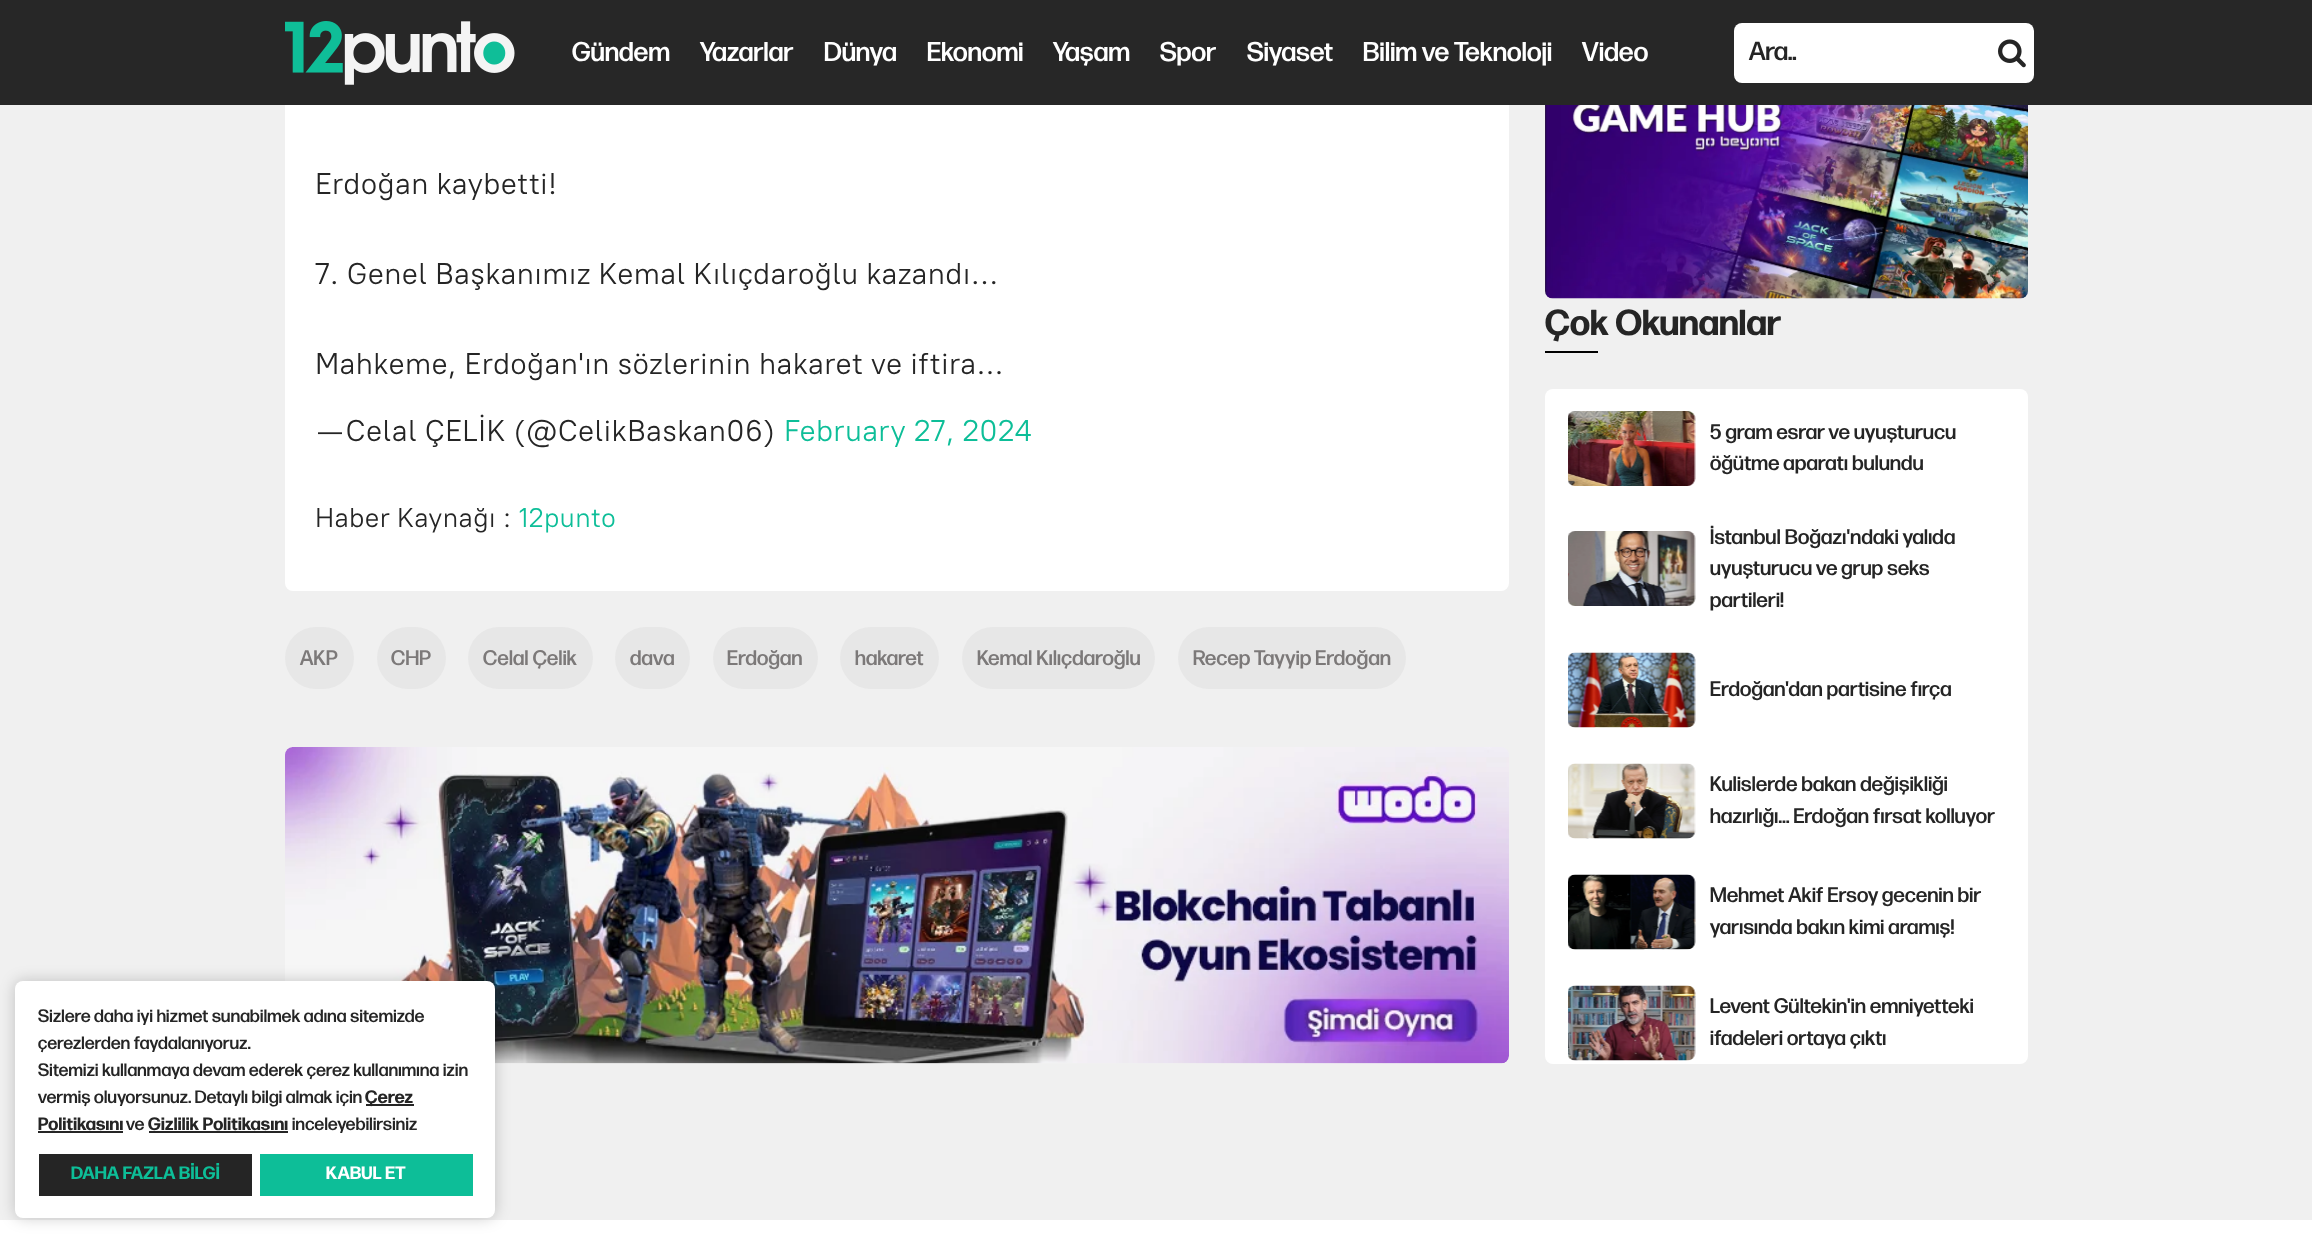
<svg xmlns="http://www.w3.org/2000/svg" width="2312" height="1234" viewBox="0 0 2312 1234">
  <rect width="100%" height="100%" fill="#f0f0f0"/>
  <rect x="285" y="-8" width="1224" height="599" rx="8" fill="#fff"/>
  <path d="M0 0h2312v105H0z" fill="#272727"/>
  <image x="285" y="21" width="230" height="64" href="img/1.png"/>
  <rect x="1734" y="23" width="300" height="60" rx="8" fill="#fff"/>
  <image x="1998" y="39" width="28" height="29" href="img/2.png"/>
  <image x="1545" y="105" width="483" height="194" href="img/3.png"/>
  <path d="M1545 351h53v2H1545z" fill="#000"/>
  <rect x="1545" y="389" width="483" height="675" rx="8" fill="#fff"/>
  <image x="1568" y="411" width="128" height="75" href="img/4.png"/>
  <image x="1568" y="531" width="128" height="75" href="img/5.png"/>
  <image x="1568" y="652" width="128" height="76" href="img/6.png"/>
  <image x="1568" y="763" width="128" height="76" href="img/7.png"/>
  <image x="1568" y="874" width="128" height="76" href="img/8.png"/>
  <image x="1568" y="985" width="128" height="76" href="img/9.png"/>
  <rect x="285" y="627" width="69" height="62" rx="31" fill="#e7e7e7"/>
  <rect x="377" y="627" width="69" height="62" rx="31" fill="#e7e7e7"/>
  <rect x="468" y="627" width="125" height="62" rx="31" fill="#e7e7e7"/>
  <rect x="615" y="627" width="75" height="62" rx="31" fill="#e7e7e7"/>
  <rect x="713" y="627" width="105" height="62" rx="31" fill="#e7e7e7"/>
  <rect x="840" y="627" width="99" height="62" rx="31" fill="#e7e7e7"/>
  <rect x="962" y="627" width="193" height="62" rx="31" fill="#e7e7e7"/>
  <rect x="1178" y="627" width="228" height="62" rx="31" fill="#e7e7e7"/>
  <image x="285" y="747" width="1224" height="317" href="img/10.png"/>
  <path d="M0 1220h2312v14H0z" fill="#fff"/>
  <rect x="15" y="981" width="480" height="237" rx="8" fill="#00000033" filter="blur(7.5px)"/>
  <rect x="15" y="981" width="480" height="237" rx="8" fill="#fff"/>
  <path d="M366 1104h48v2H366z" fill="#252525"/>
  <path d="M38 1131h85v2H38z" fill="#252525"/>
  <path d="M149 1131h139v2H149z" fill="#252525"/>
  <path d="M39 1154h213v42H39z" fill="#252525"/>
  <path d="M260 1154h213v42H260z" fill="#0dbe98"/>
  <g font-family="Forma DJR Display" font-size="27" font-weight="500" letter-spacing="0.3" fill="#fff">
    <text x="572" y="61">Gündem</text>
    <text x="700" y="61">Yazarlar</text>
    <text x="824" y="61">Dünya</text>
    <text x="927" y="61">Ekonomi</text>
    <text x="1053" y="61">Yaşam</text>
    <text x="1160" y="61">Spor</text>
    <text x="1247" y="61">Siyaset</text>
    <text x="1363" y="61">Bilim ve Teknoloji</text>
    <text x="1582" y="61">Video</text>
  </g>
  <text x="1749" y="60" font-family="Forma DJR Display" font-size="26" font-weight="500" fill="#252525">Ara..</text>
  <g font-family="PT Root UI" font-size="30" letter-spacing="0.3" fill="#252525">
    <text x="315" y="194">Erdoğan kaybetti!</text>
    <text x="315" y="284">7. Genel Başkanımız Kemal Kılıçdaroğlu kazandı...</text>
    <text x="315" y="374">Mahkeme, Erdoğan'ın sözlerinin hakaret ve iftira…</text>
    <text x="315" y="441">— Celal ÇELİK (@CelikBaskan06)</text>
  </g>
  <text x="784" y="441" font-family="PT Root UI" font-size="30" letter-spacing="0.3" fill="#0dbe98">February 27, 2024</text>
  <text x="315" y="527" font-family="PT Root UI" font-size="27" letter-spacing="0.3" fill="#252525">Haber Kaynağı :</text>
  <text x="519" y="527" font-family="PT Root UI" font-size="27" letter-spacing="0.3" fill="#0dbe98">12punto</text>
  <text x="1545" y="335" font-family="Forma DJR Display" font-size="36" font-weight="bold" letter-spacing="0.3" fill="#252525">Çok Okunanlar</text>
  <g font-family="Forma DJR Display" font-size="21" font-weight="500" letter-spacing="0.3" fill="#252525">
    <text x="1710" y="439">5 gram esrar ve uyuşturucu</text>
    <text x="1710" y="470">öğütme aparatı bulundu</text>
    <text x="1710" y="544">İstanbul Boğazı'ndaki yalıda</text>
    <text x="1710" y="575">uyuşturucu ve grup seks</text>
    <text x="1710" y="607">partileri!</text>
    <text x="1710" y="696">Erdoğan'dan partisine fırça</text>
    <text x="1710" y="791">Kulislerde bakan değişikliği</text>
    <text x="1710" y="823">hazırlığı... Erdoğan fırsat kolluyor</text>
    <text x="1710" y="902">Mehmet Akif Ersoy gecenin bir</text>
    <text x="1710" y="934">yarısında bakın kimi aramış!</text>
    <text x="1710" y="1013">Levent Gültekin'in emniyetteki</text>
    <text x="1710" y="1045">ifadeleri ortaya çıktı</text>
  </g>
  <g font-family="Forma DJR Display" font-size="21" font-weight="500" letter-spacing="0.3" fill="#7c7979">
    <text x="300" y="665">AKP</text>
    <text x="391" y="665">CHP</text>
    <text x="483" y="665">Celal Çelik</text>
    <text x="630" y="665">dava</text>
    <text x="727" y="665">Erdoğan</text>
    <text x="855" y="665">hakaret</text>
    <text x="977" y="665">Kemal Kılıçdaroğlu</text>
    <text x="1193" y="665">Recep Tayyip Erdoğan</text>
  </g>
  <g font-family="Forma DJR Display" font-size="18" font-weight="500" letter-spacing="0.3" fill="#252525">
    <text x="38" y="1022">Sizlere daha iyi hizmet sunabilmek adına sitemizde</text>
    <text x="38" y="1049">çerezlerden faydalanıyoruz.</text>
    <text x="38" y="1076">Sitemizi kullanmaya devam ederek çerez kullanımına izin</text>
    <text x="38" y="1103">vermiş oluyorsunuz. Detaylı bilgi almak için</text>
  </g>
  <g font-family="Forma DJR Display" font-size="18" font-weight="bold" letter-spacing="0.3" fill="#252525">
    <text x="365" y="1103">Çerez</text>
    <text x="38" y="1130">Politikasını</text>
  </g>
  <text x="126" y="1130" font-family="Forma DJR Display" font-size="18" font-weight="500" letter-spacing="0.3" fill="#252525">ve</text>
  <text x="148" y="1130" font-family="Forma DJR Display" font-size="18" font-weight="bold" letter-spacing="0.3" fill="#252525">Gizlilik Politikasını</text>
  <text x="292" y="1130" font-family="Forma DJR Display" font-size="18" font-weight="500" letter-spacing="0.3" fill="#252525">inceleyebilirsiniz</text>
  <text x="71" y="1179" font-family="Forma DJR Display" font-size="18" font-weight="bold" letter-spacing="0.3" fill="#0dbe98">DAHA FAZLA BİLGİ</text>
  <text x="326" y="1179" font-family="Forma DJR Display" font-size="18" font-weight="bold" letter-spacing="0.3" fill="#fff">KABUL ET</text>
</svg>
